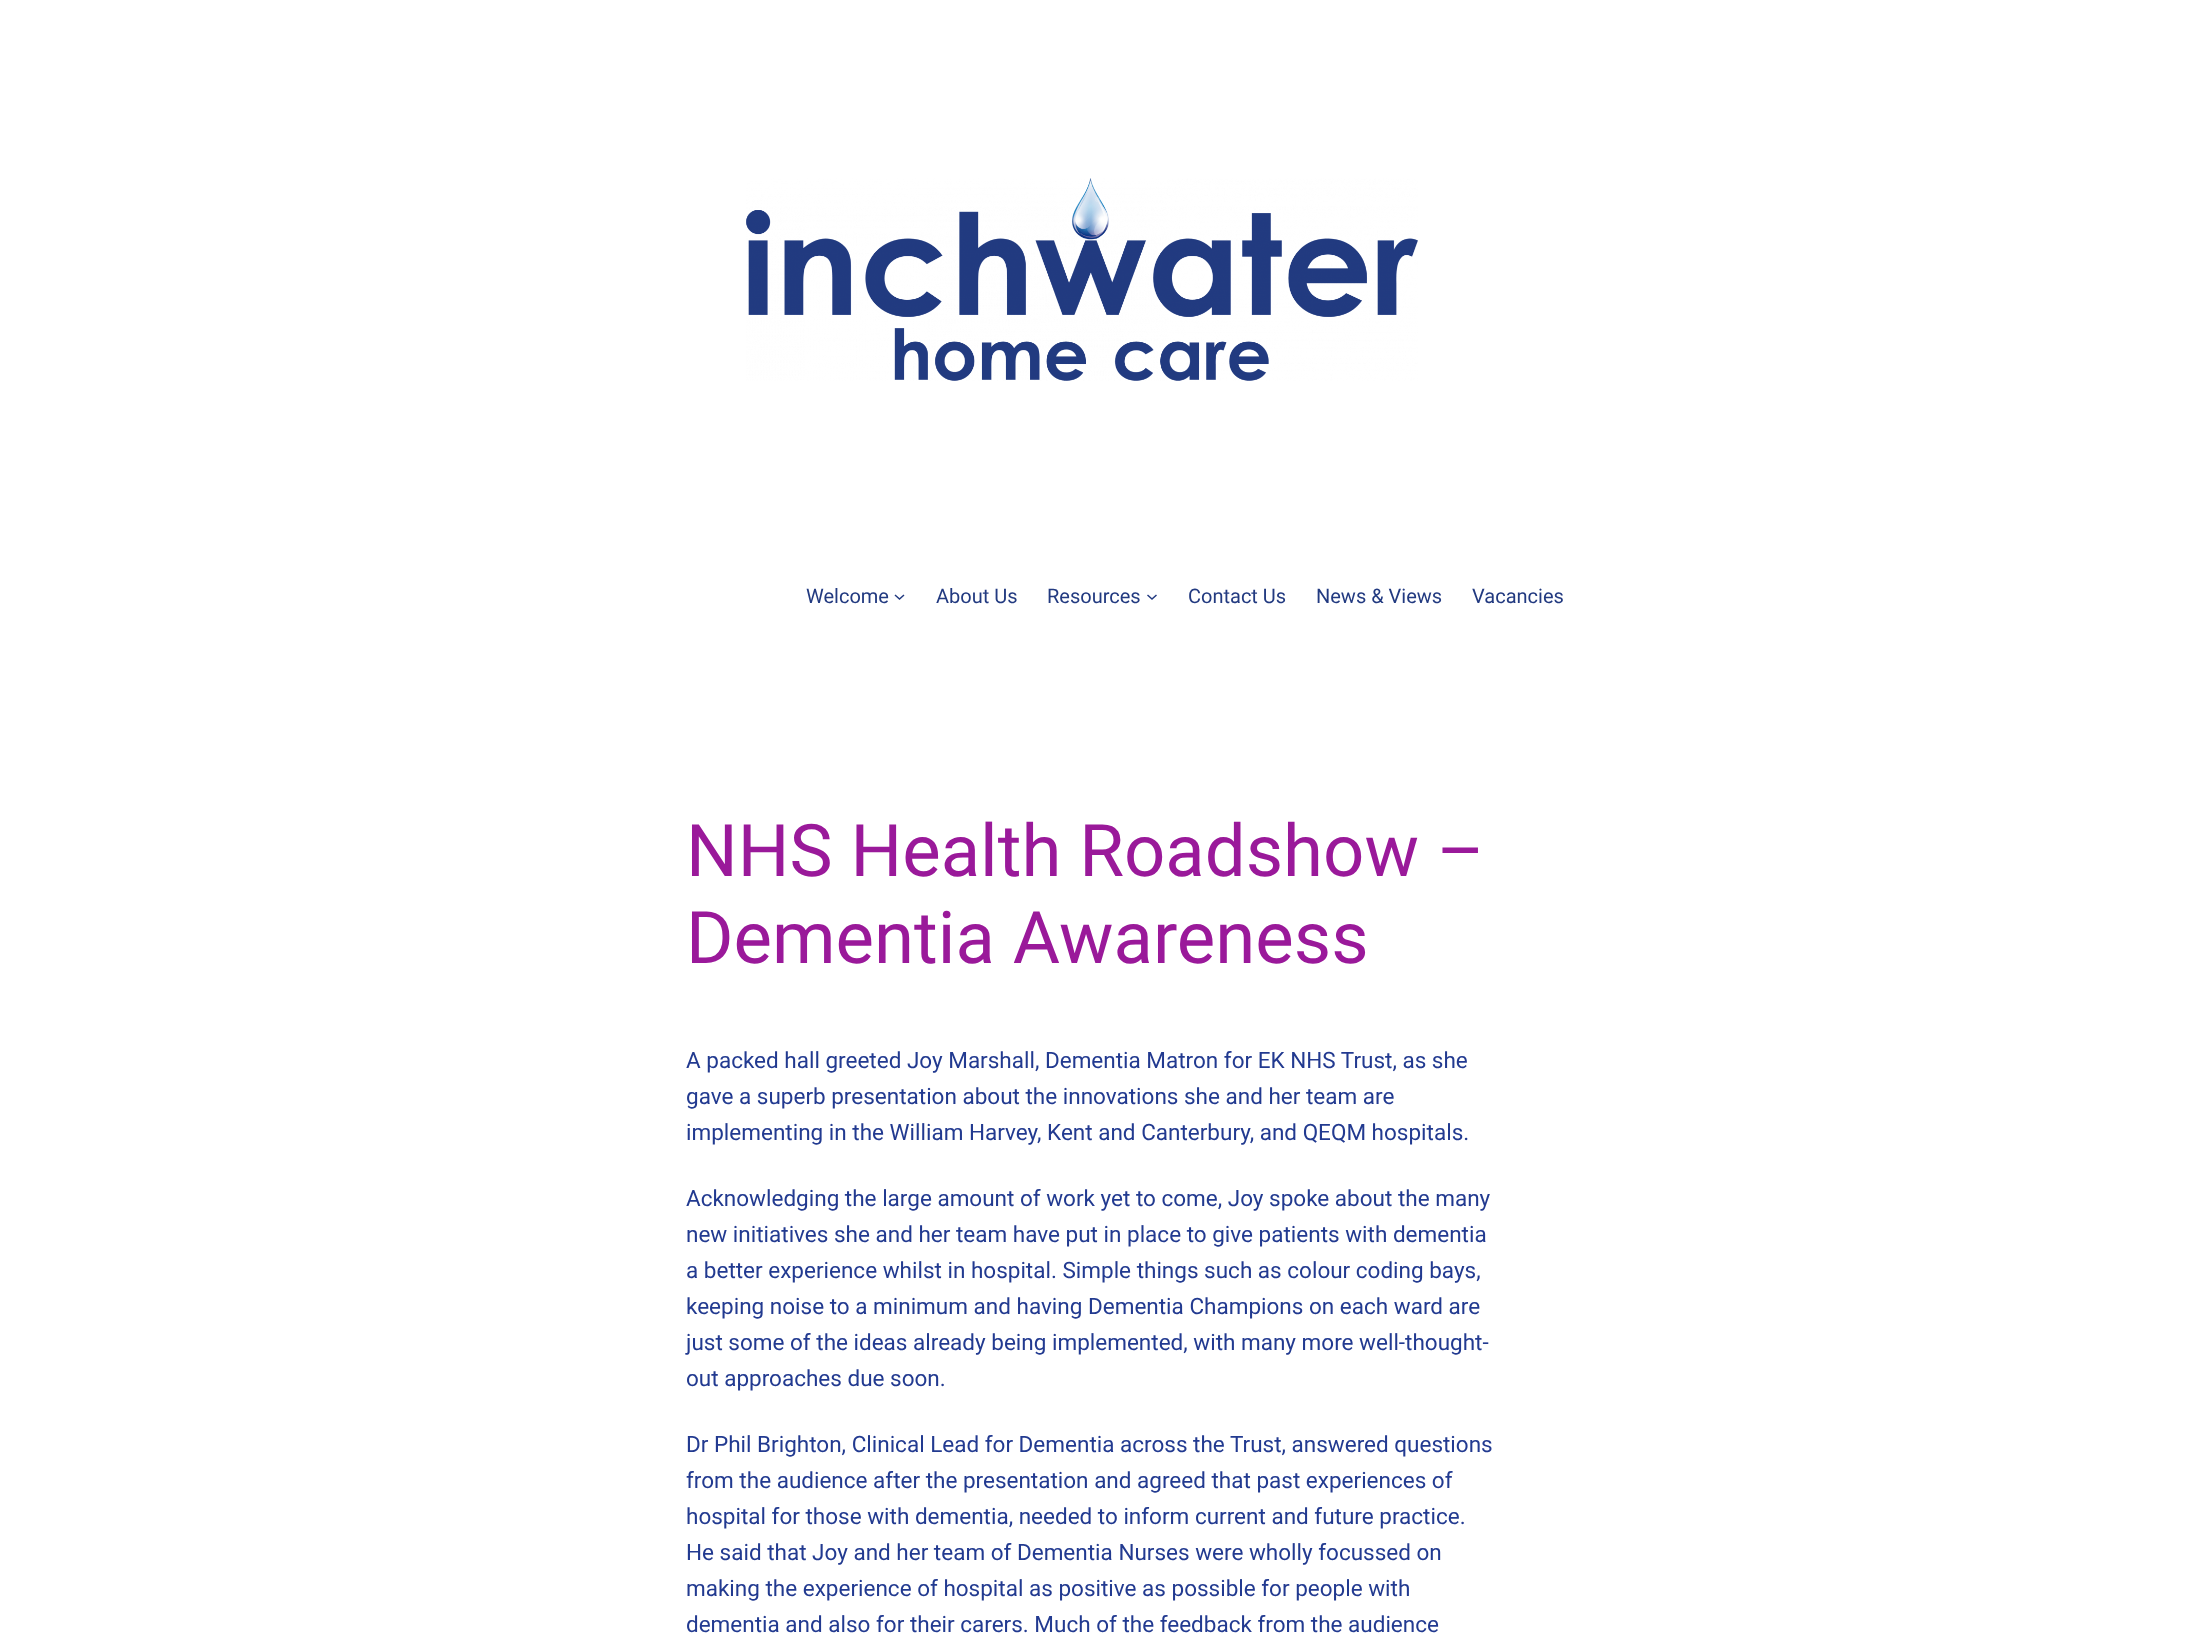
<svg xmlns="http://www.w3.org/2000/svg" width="2185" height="1643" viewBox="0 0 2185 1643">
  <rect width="100%" height="100%" fill="#fff"/>
  <image x="746" y="178" width="672" height="203" href="img/1.png"/>
  <path d="M895 595L899.5 599L904 595" fill="none" stroke="#223a80" stroke-width="1.5"/>
  <path d="M1147.5 595L1152 599L1156.5 595" fill="none" stroke="#223a80" stroke-width="1.5"/>
  <g font-family="Roboto" font-size="20" fill="#223a80">
    <text x="806" y="603">Welcome</text>
    <text x="936" y="603">About Us</text>
    <text x="1047" y="603">Resources</text>
    <text x="1188" y="603">Contact Us</text>
    <text x="1316" y="603">News &amp; Views</text>
    <text x="1472" y="603">Vacancies</text>
  </g>
  <g font-family="Roboto" font-size="72.5" fill="#9a199a">
    <text x="686" y="876">NHS Health Roadshow –</text>
    <text x="686" y="963">Dementia Awareness</text>
  </g>
  <g font-family="Roboto" font-size="22.5" fill="#223a90">
    <text x="686" y="1068">A packed hall greeted Joy Marshall, Dementia Matron for EK NHS Trust, as she</text>
    <text x="686" y="1104">gave a superb presentation about the innovations she and her team are</text>
    <text x="686" y="1140">implementing in the William Harvey, Kent and Canterbury, and QEQM hospitals.</text>
    <text x="686" y="1206">Acknowledging the large amount of work yet to come, Joy spoke about the many</text>
    <text x="686" y="1242">new initiatives she and her team have put in place to give patients with dementia</text>
    <text x="686" y="1278">a better experience whilst in hospital. Simple things such as colour coding bays,</text>
    <text x="686" y="1314">keeping noise to a minimum and having Dementia Champions on each ward are</text>
    <text x="686" y="1350">just some of the ideas already being implemented, with many more well-thought-</text>
    <text x="686" y="1386">out approaches due soon.</text>
    <text x="686" y="1452">Dr Phil Brighton, Clinical Lead for Dementia across the Trust, answered questions</text>
    <text x="686" y="1488">from the audience after the presentation and agreed that past experiences of</text>
    <text x="686" y="1524">hospital for those with dementia, needed to inform current and future practice.</text>
    <text x="686" y="1560">He said that Joy and her team of Dementia Nurses were wholly focussed on</text>
    <text x="686" y="1596">making the experience of hospital as positive as possible for people with</text>
    <text x="686" y="1632">dementia and also for their carers. Much of the feedback from the audience</text>
  </g>
</svg>
